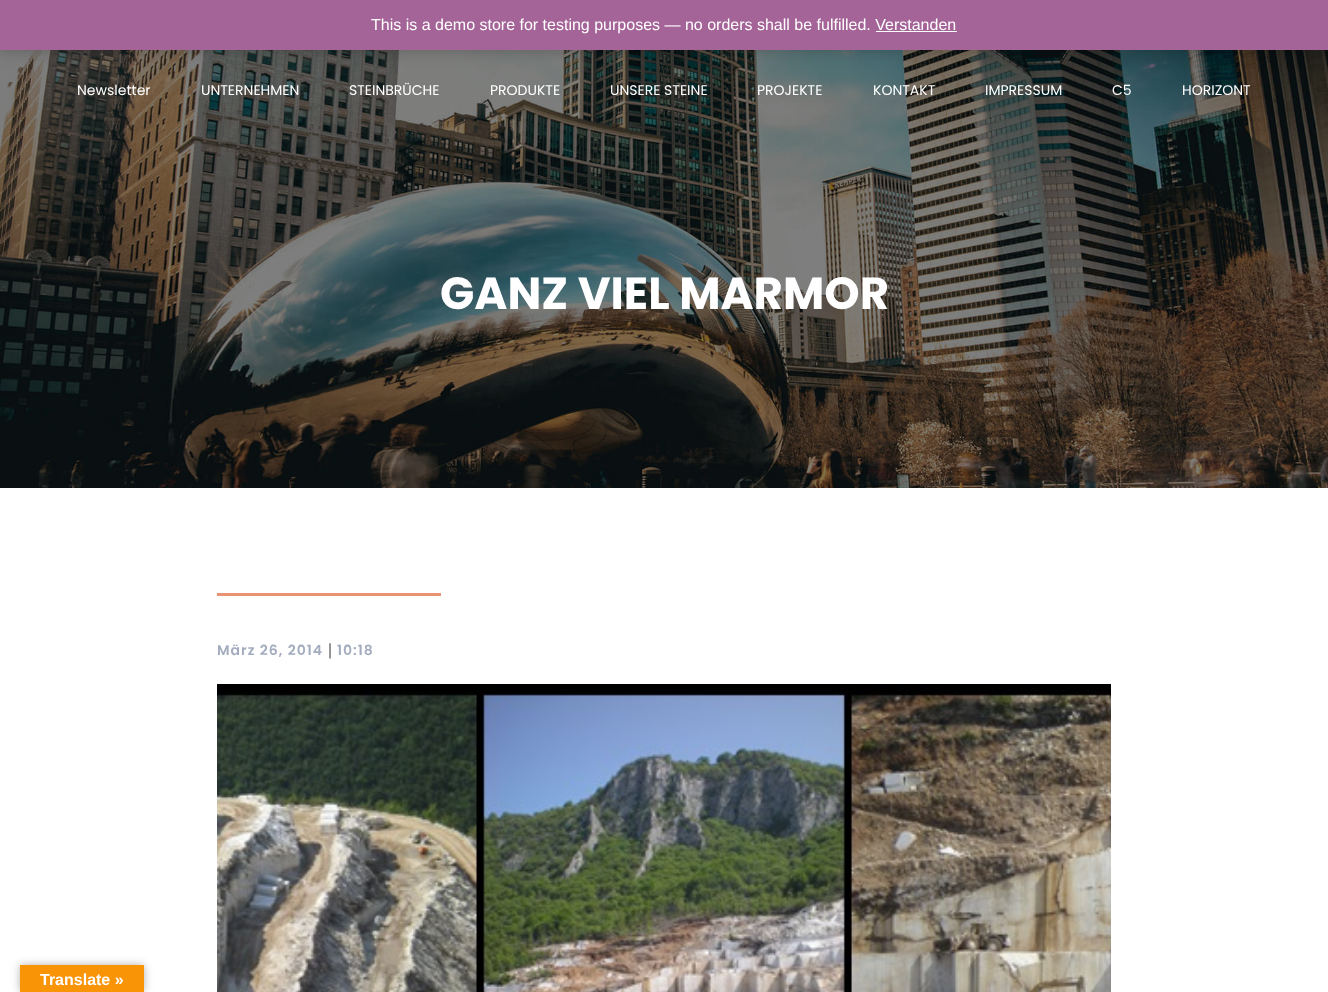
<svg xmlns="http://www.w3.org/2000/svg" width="1328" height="992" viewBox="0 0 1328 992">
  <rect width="100%" height="100%" fill="#fff"/>
  <image x="0" y="50" width="1328" height="438" href="img/1.png"/>
  <path d="M0 1h1328v50H0z" fill="#00000033" filter="blur(8px)"/>
  <path d="M0 0h1328v50H0z" fill="#a46497"/>
  <path d="M876 31h81v1H876z" fill="#fff"/>
  <path d="M217 593h224v3H217z" fill="#ea9374"/>
  <image x="217" y="684" width="894" height="308" href="img/2.png"/>
  <path d="M20 965h124v27H20z" fill="#0000004d" filter="blur(4.5px)"/>
  <path d="M20 965h124v27H20z" fill="#f89406"/>
  <text x="371" y="30" font-family="Liberation Sans" font-size="16" fill="#fff">This is a demo store for testing purposes — no orders shall be fulfilled. Verstanden</text>
  <g font-family="Poppins" font-size="14" fill="#fff">
    <text x="77" y="95">Newsletter</text>
    <text x="201" y="95">UNTERNEHMEN</text>
    <text x="349" y="95">STEINBRÜCHE</text>
    <text x="490" y="95">PRODUKTE</text>
    <text x="610" y="95">UNSERE STEINE</text>
    <text x="757" y="95">PROJEKTE</text>
    <text x="873" y="95">KONTAKT</text>
    <text x="985" y="95">IMPRESSUM</text>
    <text x="1112" y="95">C5</text>
    <text x="1182" y="95">HORIZONT</text>
  </g>
  <text x="440" y="309" font-family="Poppins" font-size="45" font-weight="bold" fill="#fff">GANZ VIEL MARMOR</text>
  <text x="217" y="655" font-family="Poppins" font-size="14" font-weight="600" letter-spacing="1" fill="#a3acbe">März 26, 2014</text>
  <text x="328" y="656" font-family="Roboto" font-size="18" font-weight="300" fill="#0a0e14">|</text>
  <text x="337" y="655" font-family="Poppins" font-size="14" font-weight="600" letter-spacing="1" fill="#a3acbe">10:18</text>
  <text x="40" y="985" font-family="Liberation Sans" font-size="16" font-weight="bold" fill="#fff">Translate »</text>
</svg>
